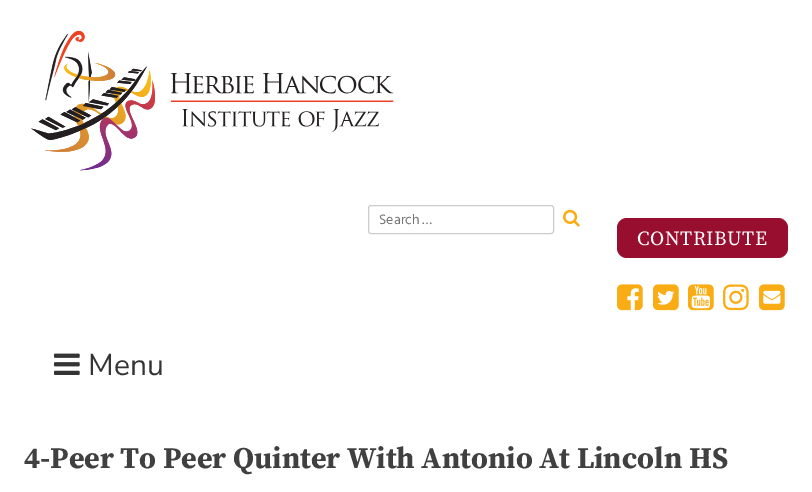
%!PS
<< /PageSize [812 492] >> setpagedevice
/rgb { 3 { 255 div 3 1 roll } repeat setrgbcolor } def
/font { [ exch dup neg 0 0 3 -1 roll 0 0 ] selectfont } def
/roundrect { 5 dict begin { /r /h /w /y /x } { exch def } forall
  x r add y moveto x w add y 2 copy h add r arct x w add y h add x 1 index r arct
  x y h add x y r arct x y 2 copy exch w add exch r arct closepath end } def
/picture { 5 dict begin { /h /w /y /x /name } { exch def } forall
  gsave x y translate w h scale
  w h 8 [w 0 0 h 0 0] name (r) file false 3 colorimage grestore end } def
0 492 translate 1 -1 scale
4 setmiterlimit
255 255 255 rgb
0 0 812 492 rectfill
(img/1.rgb) 31 30 363 141 picture
204 204 204 rgb
368.5 205.5 185 28 2.5 roundrect stroke
(img/2.rgb) 563 209 17 18 picture
151 14 46 rgb
617 218 171 40 10 roundrect fill
(img/3.rgb) 617 284 26 27 picture
(img/4.rgb) 653 284 26 27 picture
(img/5.rgb) 688 284 26 27 picture
(img/6.rgb) 723 284 26 27 picture
(img/7.rgb) 759 284 26 27 picture
(img/8.rgb) 54 353 26 22 picture
/HindSiliguri-Regular 14 font
117 117 117 rgb
379 224 moveto (Search …) show
/SourceSerifPro-Regular 20 font
255 255 255 rgb
637 245 moveto 0.5 0 (CONTRIBUTE) ashow
/NunitoSans-Regular 30 font
52 52 52 rgb
88 375 moveto (Menu) show
/SourceSerifPro-Bold 30 font
64 64 64 rgb
24 468 moveto (4-Peer To Peer Quinter With Antonio At Lincoln HS) show
showpage
